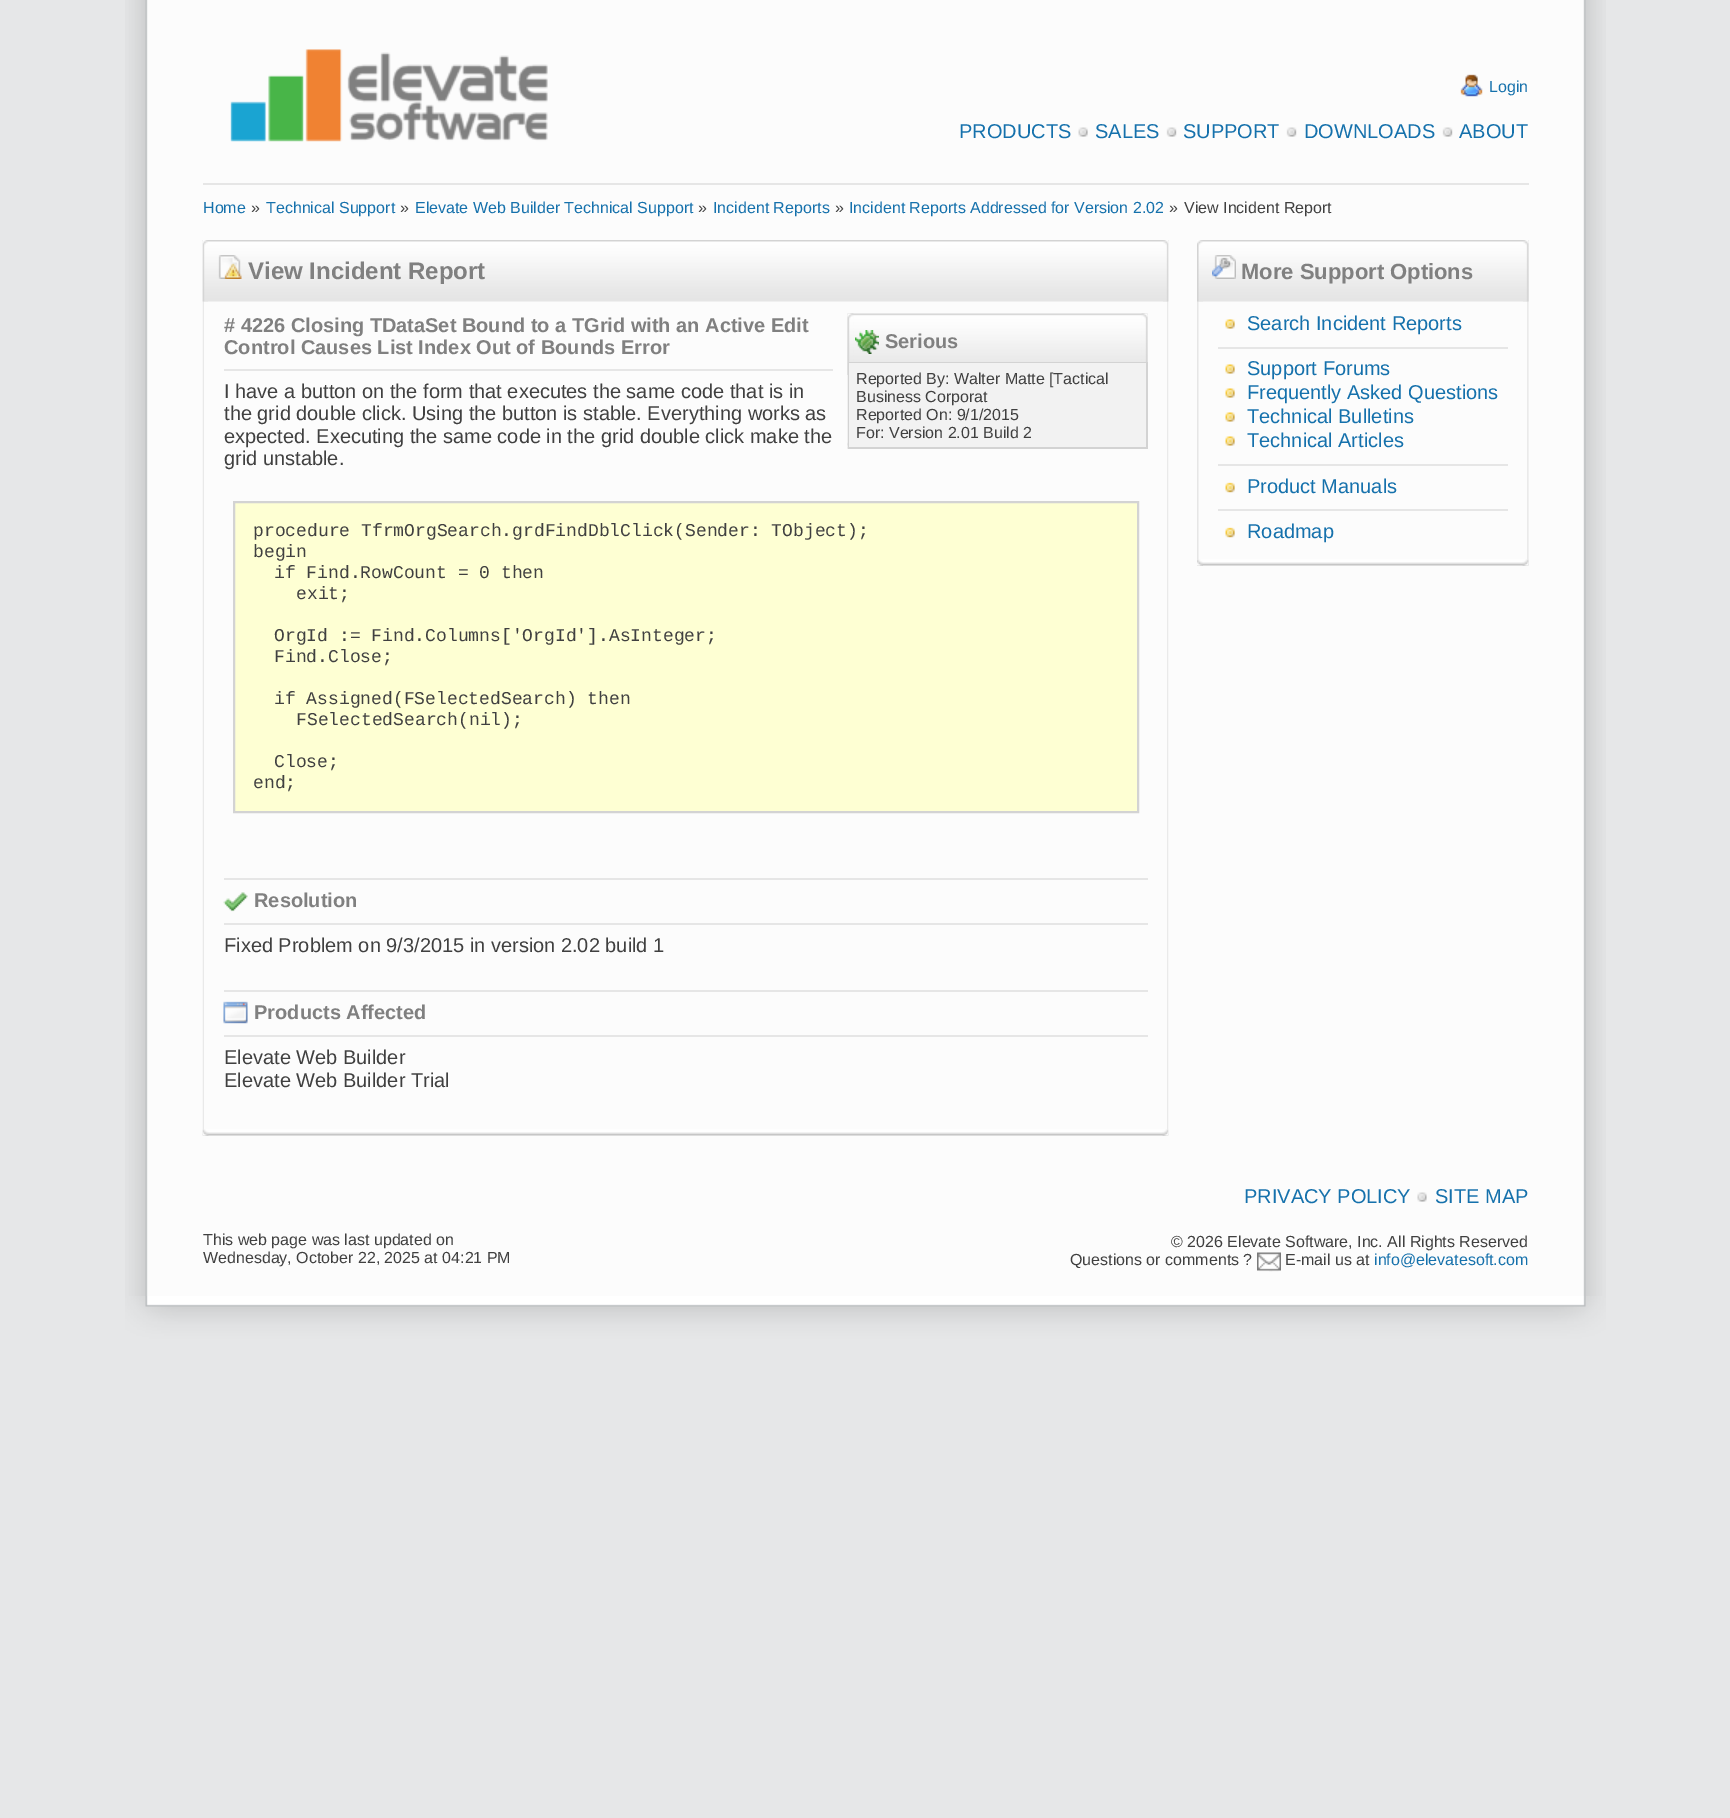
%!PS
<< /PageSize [1730 1818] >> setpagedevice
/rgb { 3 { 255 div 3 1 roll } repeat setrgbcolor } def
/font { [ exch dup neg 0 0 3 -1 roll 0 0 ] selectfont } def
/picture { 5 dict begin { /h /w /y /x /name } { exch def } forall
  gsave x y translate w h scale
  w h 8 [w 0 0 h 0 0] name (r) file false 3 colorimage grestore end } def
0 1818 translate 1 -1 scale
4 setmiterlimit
230 231 232 rgb
0 0 1730 1818 rectfill
(img/1.rgb) 125 0 1481 1296 picture
(img/2.rgb) 230 49 318 93 picture
(img/3.rgb) 1460 74 23 23 picture
(img/4.rgb) 1078 127 10 10 picture
(img/5.rgb) 1166 127 11 10 picture
(img/6.rgb) 1286 127 11 10 picture
(img/5.rgb) 1442 127 11 10 picture
230 230 230 rgb
203 183 1326 2 rectfill
(img/7.rgb) 202 240 2 896 picture
(img/8.rgb) 1167 240 2 896 picture
(img/9.rgb) 202 1129 967 7 picture
(img/10.rgb) 202 1129 7 7 picture
(img/11.rgb) 1162 1129 7 7 picture
(img/12.rgb) 202 240 967 62 picture
(img/13.rgb) 202 240 6 62 picture
(img/14.rgb) 1163 240 6 62 picture
(img/15.rgb) 218 255 24 24 picture
(img/16.rgb) 847 313 2 136 picture
(img/17.rgb) 1146 313 2 49 picture
(img/18.rgb) 847 442 1 7 picture
(img/19.rgb) 847 442 1 7 picture
(img/20.rgb) 847 313 301 62 picture
(img/21.rgb) 847 313 7 62 picture
(img/22.rgb) 1141 313 7 49 picture
(img/23.rgb) 855 330 24 24 picture
[
  [848 362 300 87 211 211 211]
  [849 363 297 84 242 242 242]
  [224 369 609 2 230 230 230]
] { aload pop rgb rectfill } forall
254 255 211 rgb
234 502 moveto 1138 502 lineto 1138 812 lineto 234 812 lineto closepath gsave fill grestore
211 211 211 rgb
2 setlinewidth
stroke
230 230 230 rgb
224 878 924 2 rectfill
(img/24.rgb) 223 892 25 20 picture
224 923 924 2 rectfill
224 990 924 2 rectfill
(img/25.rgb) 223 1001 25 23 picture
224 1035 924 2 rectfill
(img/26.rgb) 1197 301 2 265 picture
(img/27.rgb) 1527 240 2 326 picture
(img/28.rgb) 1197 559 332 7 picture
(img/29.rgb) 1197 559 6 7 picture
(img/30.rgb) 1522 559 7 7 picture
(img/31.rgb) 1197 240 332 62 picture
(img/32.rgb) 1197 240 6 62 picture
(img/33.rgb) 1523 240 6 62 picture
(img/34.rgb) 1212 255 24 24 picture
(img/35.rgb) 1225 319 10 10 picture
1218 347 290 2 rectfill
(img/35.rgb) 1225 364 10 10 picture
(img/35.rgb) 1225 388 10 10 picture
(img/35.rgb) 1225 412 10 10 picture
(img/35.rgb) 1225 436 10 10 picture
1218 464 290 2 rectfill
(img/36.rgb) 1225 482 10 11 picture
1218 509 290 2 rectfill
(img/36.rgb) 1225 527 10 11 picture
(img/37.rgb) 1417 1192 10 10 picture
(img/38.rgb) 1257 1252 24 20 picture
(img/39.rgb) 125 1296 1481 78 picture
/LiberationSans-Regular 16 font
21 113 172 rgb
1489 92 moveto (Login) show
/LiberationSans-Regular 20 font
[
  [(PRODUCTS) 959 138]
  [(SALES) 1095 138]
  [(SUPPORT) 1183 138]
  [(DOWNLOADS) 1304 138]
  [(ABOUT) 1459 138]
] { aload pop moveto show } forall
/LiberationSans-Regular 16 font
203 213 moveto (Home) show
64 64 64 rgb
251 213 moveto (») show
21 113 172 rgb
266 213 moveto (Technical Support) show
64 64 64 rgb
400 213 moveto (») show
21 113 172 rgb
415 213 moveto (Elevate Web Builder Technical Support) show
64 64 64 rgb
698 213 moveto (») show
21 113 172 rgb
713 213 moveto (Incident Reports) show
64 64 64 rgb
835 213 moveto (») show
21 113 172 rgb
849 213 moveto (Incident Reports Addressed for Version 2.02) show
64 64 64 rgb
1169 213 moveto (») show
1184 213 moveto (View Incident Report) show
/LiberationSans-Bold 24 font
128 128 128 rgb
248 279 moveto (View Incident Report) show
/LiberationSans-Bold 20 font
[
  [(# 4226 Closing TDataSet Bound to a TGrid with an Active Edit) 224 332]
  [(Control Causes List Index Out of Bounds Error) 224 354]
  [(Serious) 885 348]
] { aload pop moveto show } forall
/LiberationSans-Regular 16 font
64 64 64 rgb
[
  [(Reported By: Walter Matte [Tactical) 856 384]
  [(Business Corporat) 856 402]
  [(Reported On: 9/1/2015) 856 420]
  [(For: Version 2.01 Build 2) 856 438]
] { aload pop moveto show } forall
/LiberationSans-Regular 20 font
[
  [(I have a button on the form that executes the same code that is in) 224 398]
  [(the grid double click. Using the button is stable. Everything works as) 224 420]
  [(expected. Executing the same code in the grid double click make the) 224 443]
  [(grid unstable.) 224 465]
] { aload pop moveto show } forall
/LiberationMono-Regular 18 font
[
  [(procedure TfrmOrgSearch.grdFindDblClick\(Sender: TObject\);) 253 536]
  [(begin) 253 557]
  [(if Find.RowCount = 0 then) 274 578]
  [(exit;) 296 599]
  [(OrgId := Find.Columns['OrgId'].AsInteger;) 274 641]
  [(Find.Close;) 274 662]
  [(if Assigned\(FSelectedSearch\) then) 274 704]
  [(FSelectedSearch\(nil\);) 296 725]
  [(Close;) 274 767]
  [(end;) 253 788]
] { aload pop moveto show } forall
/LiberationSans-Bold 20 font
128 128 128 rgb
254 907 moveto (Resolution) show
/LiberationSans-Regular 20 font
64 64 64 rgb
224 952 moveto (Fixed Problem on 9/3/2015 in version 2.02 build 1) show
/LiberationSans-Bold 20 font
128 128 128 rgb
254 1019 moveto (Products Affected) show
/LiberationSans-Regular 20 font
64 64 64 rgb
224 1064 moveto (Elevate Web Builder) show
224 1087 moveto (Elevate Web Builder Trial) show
/LiberationSans-Bold 22 font
128 128 128 rgb
1241 279 moveto (More Support Options) show
/LiberationSans-Regular 20 font
21 113 172 rgb
[
  [(Search Incident Reports) 1247 330]
  [(Support Forums) 1247 375]
  [(Frequently Asked Questions) 1247 399]
  [(Technical Bulletins) 1247 423]
  [(Technical Articles) 1247 447]
  [(Product Manuals) 1247 493]
  [(Roadmap) 1247 538]
] { aload pop moveto show } forall
/LiberationSans-Regular 16 font
64 64 64 rgb
203 1245 moveto (This web page was last updated on) show
203 1263 moveto (Wednesday, October 22, 2025 at 04:21 PM) show
/LiberationSans-Regular 20 font
21 113 172 rgb
1244 1203 moveto (PRIVACY POLICY) show
1435 1203 moveto (SITE MAP) show
/LiberationSans-Regular 16 font
64 64 64 rgb
[
  [(© 2026 Elevate Software, Inc. All Rights Reserved) 1171 1247]
  [(Questions or comments ?) 1070 1265]
  [(E-mail us at) 1285 1265]
] { aload pop moveto show } forall
21 113 172 rgb
1374 1265 moveto (info@elevatesoft.com) show
showpage
